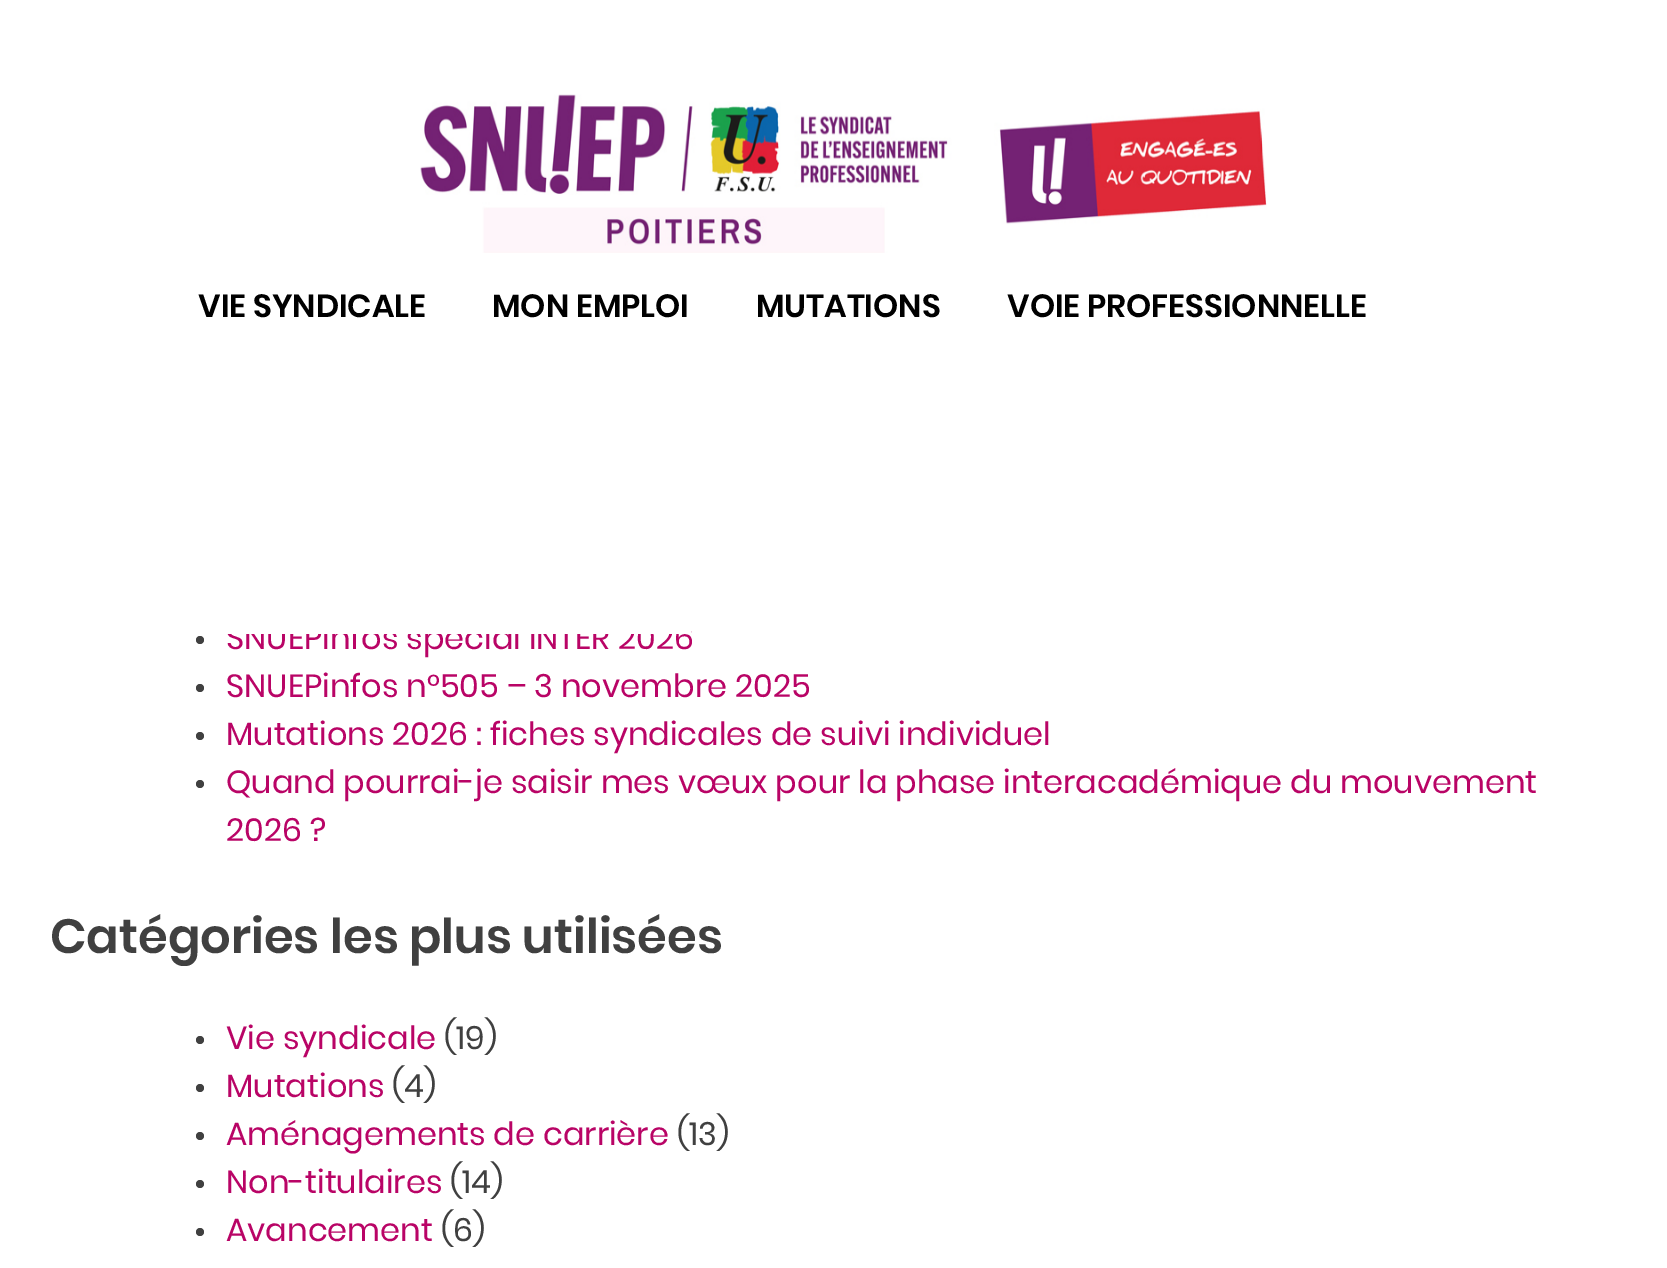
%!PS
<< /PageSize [1667 1268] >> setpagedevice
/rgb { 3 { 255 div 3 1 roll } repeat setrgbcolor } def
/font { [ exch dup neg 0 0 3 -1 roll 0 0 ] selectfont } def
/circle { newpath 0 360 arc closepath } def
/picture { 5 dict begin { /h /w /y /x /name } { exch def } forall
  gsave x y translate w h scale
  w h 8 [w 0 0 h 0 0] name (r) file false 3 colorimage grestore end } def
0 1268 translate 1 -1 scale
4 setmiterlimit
255 255 255 rgb
0 0 1667 1268 rectfill
(img/1.rgb) 420 94 847 159 picture
64 64 64 rgb
200 640 4 circle fill
200 688 4 circle fill
200 736 4 circle fill
200 784 4 circle fill
200 1040 4 circle fill
200 1088 4 circle fill
200 1136 4 circle fill
200 1184 4 circle fill
200 1232 4 circle fill
/Poppins-SemiBold 32 font
0 0 0 rgb
[
  [(VIE SYNDICALE) 198 317]
  [(MON EMPLOI) 492 317]
  [(MUTATIONS) 756 317]
  [(VOIE PROFESSIONNELLE) 1007 317]
] { aload pop moveto show } forall
/Poppins-Regular 32 font
185 4 102 rgb
226 649 moveto (SNUEPinfos spécial INTER 2026) show
255 255 255 rgb
227 624 464 10 rectfill
185 4 102 rgb
[
  [(SNUEPinfos n°505 – 3 novembre 2025) 226 697]
  [(Mutations 2026 : fiches syndicales de suivi individuel) 226 745]
  [(Quand pourrai-je saisir mes vœux pour la phase interacadémique du mouvement) 226 793]
  [(2026 ?) 226 841]
] { aload pop moveto show } forall
/Poppins-SemiBold 48 font
64 64 64 rgb
50 953 moveto (Catégories les plus utilisées) show
/Poppins-Regular 32 font
185 4 102 rgb
226 1049 moveto (Vie syndicale) show
64 64 64 rgb
444 1049 moveto (\(19\)) show
185 4 102 rgb
226 1097 moveto (Mutations) show
64 64 64 rgb
392 1097 moveto (\(4\)) show
185 4 102 rgb
226 1145 moveto (Aménagements de carrière) show
64 64 64 rgb
677 1145 moveto (\(13\)) show
185 4 102 rgb
226 1193 moveto (Non-titulaires) show
64 64 64 rgb
450 1193 moveto (\(14\)) show
185 4 102 rgb
226 1241 moveto (Avancement) show
64 64 64 rgb
441 1241 moveto (\(6\)) show
showpage
